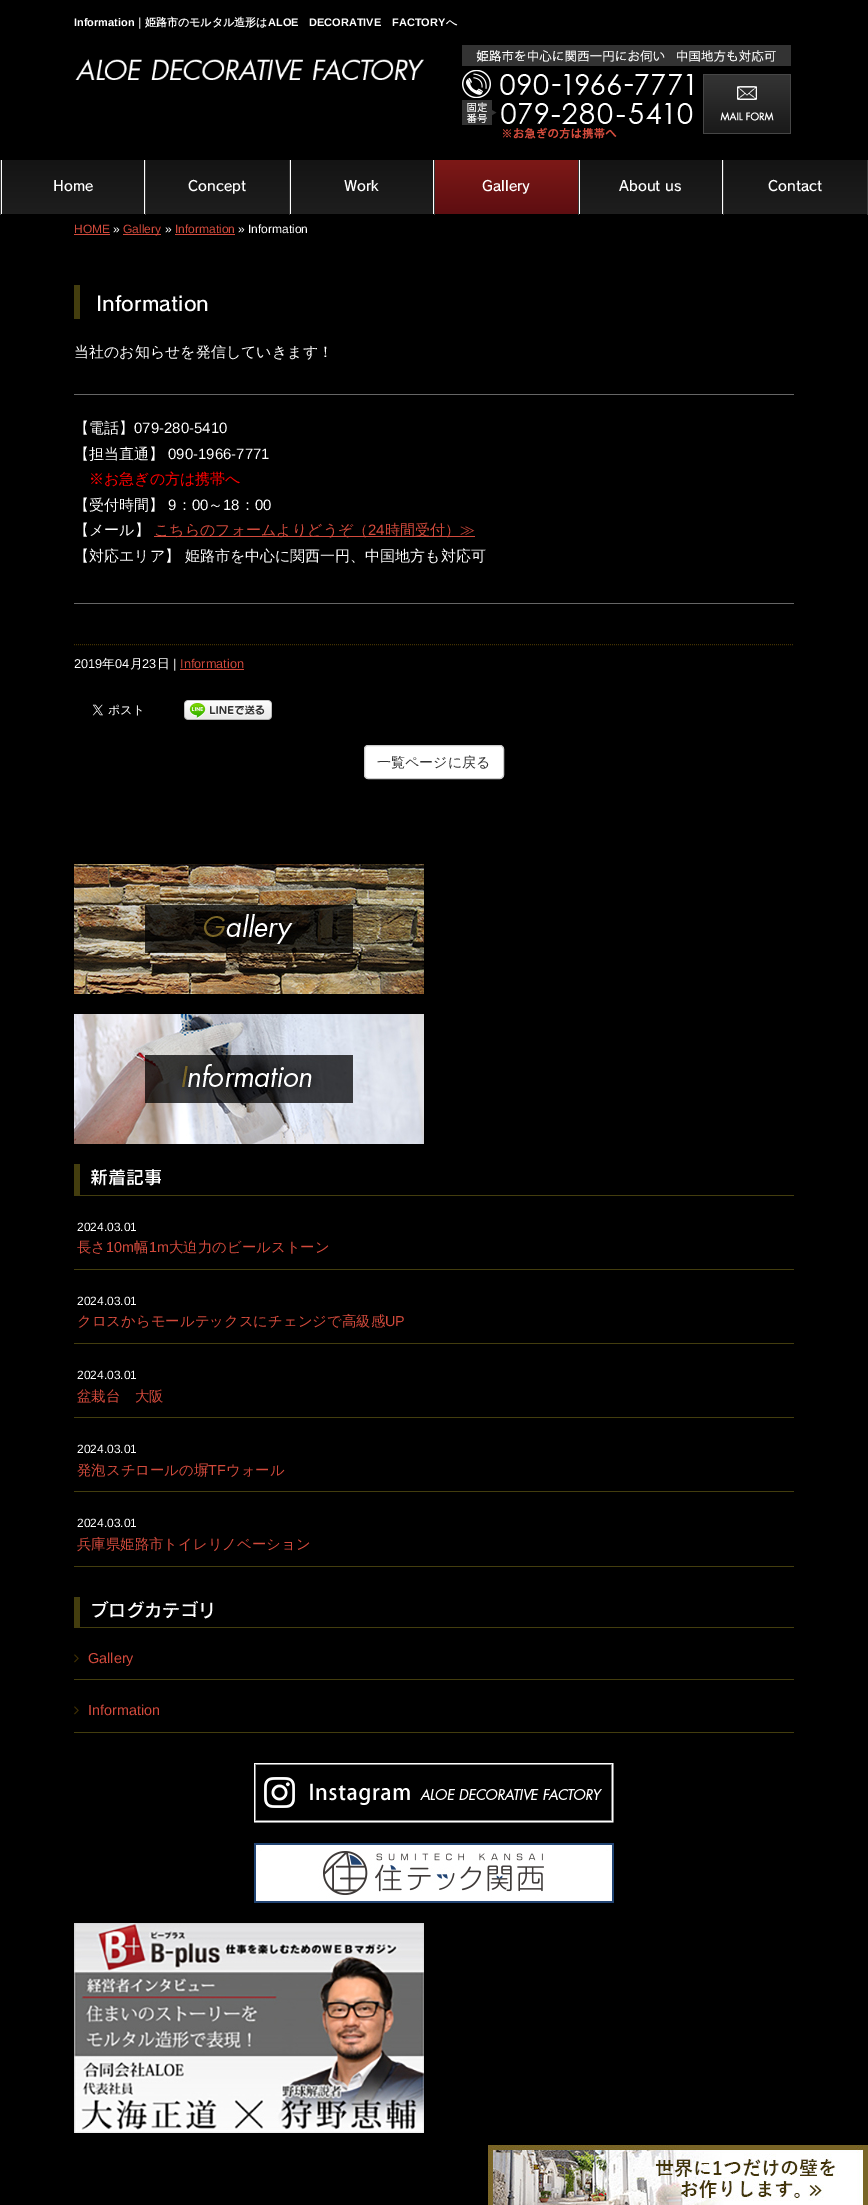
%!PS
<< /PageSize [868 2205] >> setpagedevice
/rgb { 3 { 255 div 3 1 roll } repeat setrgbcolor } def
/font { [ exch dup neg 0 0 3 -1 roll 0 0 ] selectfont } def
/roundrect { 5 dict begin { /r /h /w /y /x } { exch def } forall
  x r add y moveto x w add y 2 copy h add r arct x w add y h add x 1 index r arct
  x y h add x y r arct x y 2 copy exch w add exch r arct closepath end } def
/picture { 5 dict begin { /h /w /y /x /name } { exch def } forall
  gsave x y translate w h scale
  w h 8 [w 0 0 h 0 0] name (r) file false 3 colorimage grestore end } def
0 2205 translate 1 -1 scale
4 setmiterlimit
0 0 0 rgb
0 0 868 2205 rectfill
(img/1.rgb) 75 59 349 21 picture
(img/2.rgb) 462 45 329 94 picture
255 255 255 rgb
1 160 722 54 rectfill
gsave 2 160 moveto 144 160 lineto 144 214 lineto 2 214 lineto closepath clip newpath
<< /ShadingType 2 /ColorSpace /DeviceRGB /Coords [73 160 73 214] /Extend [true true] /Function << /FunctionType 2 /Domain [0 1] /C0 [0.078 0.078 0.078] /C1 [0.118 0.118 0.118] /N 1 >> >> shfill grestore
56 56 56 rgb
0 160 1 55 rectfill
145 160 1 55 rectfill
gsave 146 160 moveto 289 160 lineto 289 214 lineto 146 214 lineto closepath clip newpath
<< /ShadingType 2 /ColorSpace /DeviceRGB /Coords [218 160 218 214] /Extend [true true] /Function << /FunctionType 2 /Domain [0 1] /C0 [0.078 0.078 0.078] /C1 [0.118 0.118 0.118] /N 1 >> >> shfill grestore
289 160 1 55 rectfill
gsave 291 160 moveto 433 160 lineto 433 214 lineto 291 214 lineto closepath clip newpath
<< /ShadingType 2 /ColorSpace /DeviceRGB /Coords [362 160 362 214] /Extend [true true] /Function << /FunctionType 2 /Domain [0 1] /C0 [0.078 0.078 0.078] /C1 [0.118 0.118 0.118] /N 1 >> >> shfill grestore
434 160 1 55 rectfill
gsave 435 160 moveto 578 160 lineto 578 214 lineto 435 214 lineto closepath clip newpath
<< /ShadingType 2 /ColorSpace /DeviceRGB /Coords [507 160 507 214] /Extend [true true] /Function << /FunctionType 2 /Domain [0 1] /C0 [0.49 0.098 0.09] /C1 [0.369 0.055 0.067] /N 1 >> >> shfill grestore
gsave 580 160 moveto 722 160 lineto 722 214 lineto 580 214 lineto closepath clip newpath
<< /ShadingType 2 /ColorSpace /DeviceRGB /Coords [651 160 651 214] /Extend [true true] /Function << /FunctionType 2 /Domain [0 1] /C0 [0.078 0.078 0.078] /C1 [0.118 0.118 0.118] /N 1 >> >> shfill grestore
578 160 1 55 rectfill
gsave 724 160 moveto 867 160 lineto 867 214 lineto 724 214 lineto closepath clip newpath
<< /ShadingType 2 /ColorSpace /DeviceRGB /Coords [796 160 796 214] /Extend [true true] /Function << /FunctionType 2 /Domain [0 1] /C0 [0.078 0.078 0.078] /C1 [0.118 0.118 0.118] /N 1 >> >> shfill grestore
[
  [867 160 1 55 56 56 56]
  [723 160 1 55 56 56 56]
  [74 234 36 1 210 74 60]
  [123 234 38 1 210 74 60]
  [175 234 60 1 210 74 60]
  [74 285 6 34 67 61 14]
  [74 394 720 1 102 102 102]
  [74 603 720 1 102 102 102]
  [154 536 321 1 210 74 60]
] { aload pop rgb rectfill } forall
66 49 3 rgb
[1 1] 0 setdash
74 644.5 moveto 794 644.5 lineto stroke
210 74 60 rgb
180 669 64 1 rectfill
(img/3.rgb) 92 704 50 12 picture
(img/4.rgb) 184 700 88 20 picture
255 255 255 rgb
364.5 745.5 139 33 3.5 roundrect gsave fill grestore
204 204 204 rgb
[] 0 setdash
stroke
(img/5.rgb) 74 864 350 130 picture
(img/6.rgb) 74 1014 350 130 picture
[
  [74 1195 720 1 67 61 14]
  [74 1164 6 32 67 61 14]
  [74 1269 720 1 67 61 14]
  [74 1343 720 1 67 61 14]
  [74 1417 720 1 67 61 14]
  [74 1491 720 1 67 61 14]
  [74 1566 720 1 67 61 14]
  [74 1627 720 1 67 61 14]
  [74 1597 6 31 67 61 14]
  [74 1679 720 1 67 61 14]
] { aload pop rgb rectfill } forall
(img/7.rgb) 74 1654 5 9 picture
74 1732 720 1 rectfill
(img/7.rgb) 74 1706 5 9 picture
(img/8.rgb) 254 1763 360 60 picture
(img/9.rgb) 254 1843 360 60 picture
(img/10.rgb) 74 1923 350 210 picture
(img/11.rgb) 488 2145 380 60 picture
/LiberationSans-Bold 11 font
255 255 255 rgb
74 26 moveto (Information) show
/WenQuanYiZenHei-Bold 11 font
134 26 moveto (｜姫路市のモルタル造形は) show
/LiberationSans-Bold 11 font
[
  [(ALOE) 268 26]
  [(DECORATIVE) 309 26]
  [(FACTORY) 392 26]
] { aload pop moveto show } forall
/WenQuanYiZenHei-Bold 11 font
446 26 moveto (へ) show
/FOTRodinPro-SemiBold 14 font
[
  [(Home) 53 191]
  [(Concept) 188 191]
  [(Work) 344 191]
  [(Gallery) 482 191]
  [(About us) 619 191]
  [(Contact) 768 191]
] { aload pop moveto show } forall
/LiberationSans-Regular 12 font
210 74 60 rgb
74 233 moveto (HOME) show
255 255 255 rgb
113 233 moveto (») show
210 74 60 rgb
123 233 moveto (Gallery) show
255 255 255 rgb
165 233 moveto (») show
210 74 60 rgb
175 233 moveto (Information) show
255 255 255 rgb
238 233 moveto (» Information) show
/FOTRodinPro-SemiBold 20 font
96 311 moveto (Information) show
/WenQuanYiZenHei-Medium 15 font
74 357 moveto (当社のお知らせを発信していきます！) show
74 433 moveto (【電話】) show
/LiberationSans-Regular 15 font
134 433 moveto (079-280-5410) show
/WenQuanYiZenHei-Medium 15 font
74 459 moveto (【担当直通】) show
/LiberationSans-Regular 15 font
168 459 moveto (090-1966-7771) show
/WenQuanYiZenHei-Medium 15 font
255 0 0 rgb
89 484 moveto (※お急ぎの方は携帯へ) show
255 255 255 rgb
74 510 moveto (【受付時間】) show
/LiberationSans-Regular 15 font
168 510 moveto (9) show
/WenQuanYiZenHei-Medium 15 font
177 510 moveto (：) show
/LiberationSans-Regular 15 font
192 510 moveto (00) show
/WenQuanYiZenHei-Medium 15 font
208 510 moveto (～) show
/LiberationSans-Regular 15 font
223 510 moveto (18) show
/WenQuanYiZenHei-Medium 15 font
240 510 moveto (：) show
/LiberationSans-Regular 15 font
255 510 moveto (00) show
/WenQuanYiZenHei-Medium 15 font
74 535 moveto (【メール】) show
210 74 60 rgb
154 535 moveto (こちらのフォームよりどうぞ（) show
/LiberationSans-Regular 15 font
368 535 moveto (24) show
/WenQuanYiZenHei-Medium 15 font
385 535 moveto (時間受付）≫) show
255 255 255 rgb
74 561 moveto (【対応エリア】 姫路市を中心に関西一円、中国地方も対応可) show
/LiberationSans-Regular 12.75 font
74 668 moveto (2019) show
/WenQuanYiZenHei-Medium 12.75 font
102 668 moveto (年) show
/LiberationSans-Regular 12.75 font
115 668 moveto (04) show
/WenQuanYiZenHei-Medium 12.75 font
130 668 moveto (月) show
/LiberationSans-Regular 12.75 font
142 668 moveto (23) show
/WenQuanYiZenHei-Medium 12.75 font
157 668 moveto (日) show
/LiberationSans-Regular 12.75 font
173 668 moveto (|) show
210 74 60 rgb
180 668 moveto (Information) show
/WenQuanYiZenHei-Medium 14 font
51 51 51 rgb
377 767 moveto (一覧ページに戻る) show
/FOTRodinPro-SemiBold 18 font
255 255 255 rgb
90 1184 moveto (新着記事) show
/LiberationSans-Regular 12 font
77 1231 moveto (2024.03.01) show
/WenQuanYiZenHei-Medium 14.4 font
210 74 60 rgb
77 1252 moveto (長さ) show
/LiberationSans-Regular 14.4 font
106 1252 moveto (10m) show
/WenQuanYiZenHei-Medium 14.4 font
134 1252 moveto (幅) show
/LiberationSans-Regular 14.4 font
149 1252 moveto (1m) show
/WenQuanYiZenHei-Medium 14.4 font
169 1252 moveto (大迫力のビールストーン) show
/LiberationSans-Regular 12 font
255 255 255 rgb
77 1305 moveto (2024.03.01) show
/WenQuanYiZenHei-Medium 14.4 font
210 74 60 rgb
77 1326 moveto (クロスからモールテックスにチェンジで高級感) show
/LiberationSans-Regular 14.4 font
385 1326 moveto (UP) show
/LiberationSans-Regular 12 font
255 255 255 rgb
77 1379 moveto (2024.03.01) show
/WenQuanYiZenHei-Medium 14.4 font
210 74 60 rgb
77 1401 moveto (盆栽台　大阪) show
/LiberationSans-Regular 12 font
255 255 255 rgb
77 1453 moveto (2024.03.01) show
/WenQuanYiZenHei-Medium 14.4 font
210 74 60 rgb
77 1475 moveto (発泡スチロールの塀) show
/LiberationSans-Regular 14.4 font
208 1475 moveto (TF) show
/WenQuanYiZenHei-Medium 14.4 font
226 1475 moveto (ウォール) show
/LiberationSans-Regular 12 font
255 255 255 rgb
77 1527 moveto (2024.03.01) show
/WenQuanYiZenHei-Medium 14.4 font
210 74 60 rgb
77 1549 moveto (兵庫県姫路市トイレリノベーション) show
/FOTRodinPro-SemiBold 18 font
255 255 255 rgb
90 1617 moveto (ブログカテゴリ) show
/LiberationSans-Regular 14.4 font
210 74 60 rgb
88 1663 moveto (Gallery) show
88 1715 moveto (Information) show
showpage
